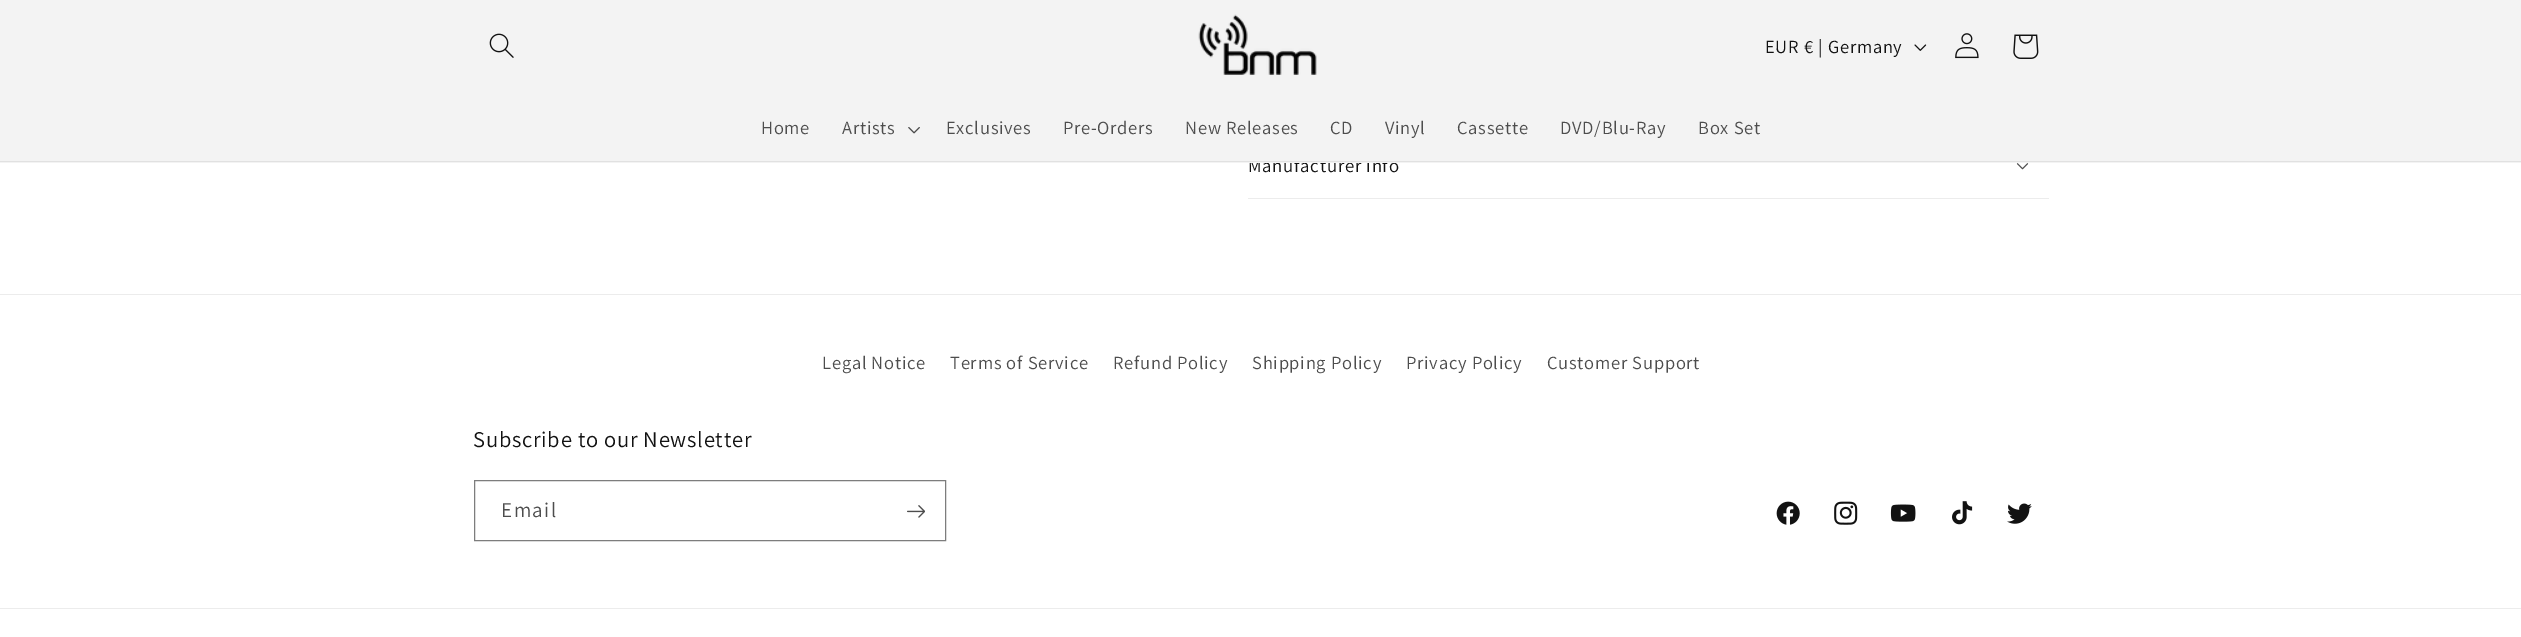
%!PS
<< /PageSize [2521 637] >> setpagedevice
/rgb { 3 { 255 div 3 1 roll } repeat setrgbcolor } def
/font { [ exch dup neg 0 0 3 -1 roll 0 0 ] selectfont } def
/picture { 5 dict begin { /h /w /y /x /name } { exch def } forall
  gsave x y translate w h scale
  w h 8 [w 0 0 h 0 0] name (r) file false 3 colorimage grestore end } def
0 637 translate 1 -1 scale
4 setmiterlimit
255 255 255 rgb
0 0 2521 637 rectfill
236 236 236 rgb
1248 198 801 1 rectfill
(img/7.rgb) 2016 163 13 7 picture
0 294 2521 1 rectfill
125 125 125 rgb
474.5 480.5 471 60 rectstroke
(img/8.rgb) 907 505 18 13 picture
(img/9.rgb) 1776 501 24 24 picture
(img/10.rgb) 1834 501 24 24 picture
(img/11.rgb) 1890 504 26 18 picture
(img/12.rgb) 1952 501 21 24 picture
(img/13.rgb) 2007 503 25 21 picture
236 236 236 rgb
0 608 2521 1 rectfill
/Assistant-Regular 18.75 font
18 18 18 rgb
1248 172 moveto 0.75 0 (Manufacturer info) ashow
243 243 243 rgb
0 0 2521 163 rectfill
(img/5.rgb) 2013 34 26 25 picture
(img/3.rgb) 1914 44 13 7 picture
/Assistant-Regular 18.5 font
18 18 18 rgb
1765 53 moveto 0.75 0 (EUR € | Germany) ashow
(img/6.rgb) 908 127 12 7 picture
77 77 77 rgb
842 134 moveto 0.75 0 (Artists) ashow
(img/1.rgb) 489 33 25 25 picture
(img/4.rgb) 1955 33 24 26 picture
1698 134 moveto 0.75 0 (Box Set) ashow
1560 134 moveto 0.75 0 (DVD/Blu-Ray) ashow
1457 134 moveto 0.75 0 (Cassette) ashow
1385 134 moveto 0.75 0 (Vinyl) ashow
1330 134 moveto 0.75 0 (CD) ashow
1185 134 moveto 0.75 0 (New Releases) ashow
1063 134 moveto 0.75 0 (Pre-Orders) ashow
946 134 moveto 0.75 0 (Exclusives) ashow
761 134 moveto 0.75 0 (Home) ashow
(img/2.rgb) 1198 14 119 61 picture
225 225 225 rgb
0 161 2521 1 rectfill
77 77 77 rgb
822 369 moveto 0.75 0 (Legal Notice) ashow
950 369 moveto 0.75 0 (Terms of Service) ashow
1113 369 moveto 0.75 0 (Refund Policy) ashow
1252 369 moveto 0.75 0 (Shipping Policy) ashow
1406 369 moveto 0.75 0 (Privacy Policy) ashow
1547 369 moveto 0.75 0 (Customer Support) ashow
/Assistant-Regular 22.5 font
18 18 18 rgb
473 447 moveto 0.75 0 (Subscribe to our Newsletter) ashow
/Assistant-Regular 21 font
77 77 77 rgb
501 517 moveto 1.5 0 (Email) ashow
showpage
